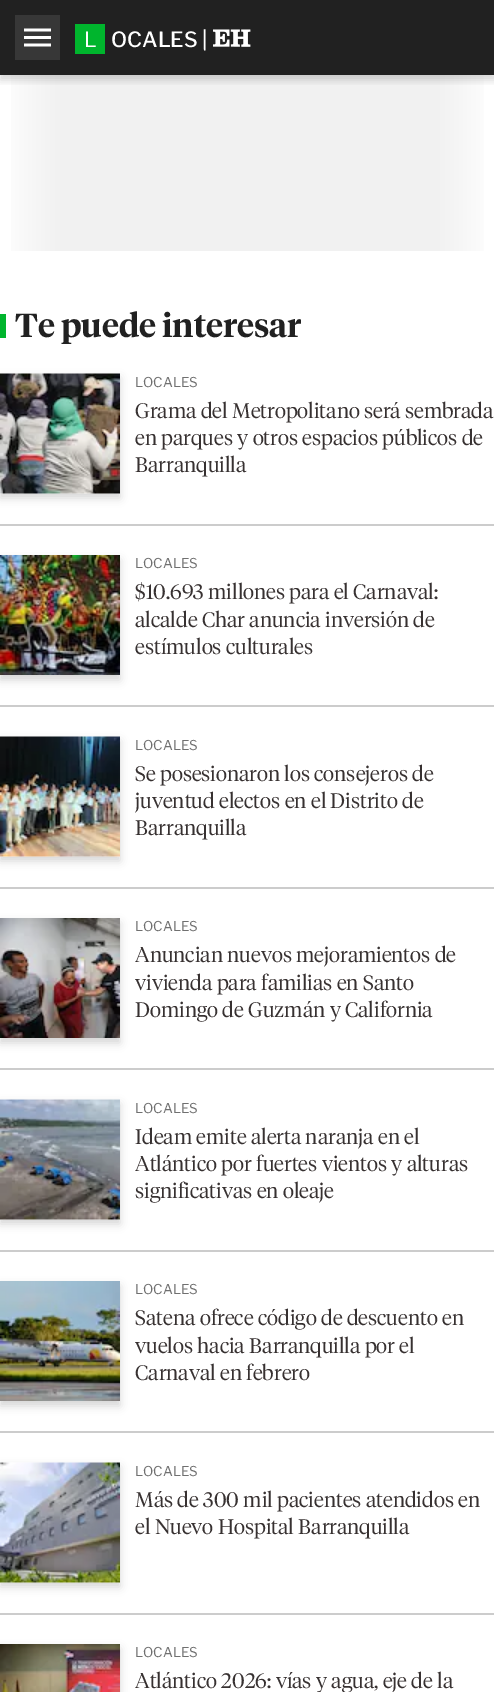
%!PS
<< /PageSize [494 1692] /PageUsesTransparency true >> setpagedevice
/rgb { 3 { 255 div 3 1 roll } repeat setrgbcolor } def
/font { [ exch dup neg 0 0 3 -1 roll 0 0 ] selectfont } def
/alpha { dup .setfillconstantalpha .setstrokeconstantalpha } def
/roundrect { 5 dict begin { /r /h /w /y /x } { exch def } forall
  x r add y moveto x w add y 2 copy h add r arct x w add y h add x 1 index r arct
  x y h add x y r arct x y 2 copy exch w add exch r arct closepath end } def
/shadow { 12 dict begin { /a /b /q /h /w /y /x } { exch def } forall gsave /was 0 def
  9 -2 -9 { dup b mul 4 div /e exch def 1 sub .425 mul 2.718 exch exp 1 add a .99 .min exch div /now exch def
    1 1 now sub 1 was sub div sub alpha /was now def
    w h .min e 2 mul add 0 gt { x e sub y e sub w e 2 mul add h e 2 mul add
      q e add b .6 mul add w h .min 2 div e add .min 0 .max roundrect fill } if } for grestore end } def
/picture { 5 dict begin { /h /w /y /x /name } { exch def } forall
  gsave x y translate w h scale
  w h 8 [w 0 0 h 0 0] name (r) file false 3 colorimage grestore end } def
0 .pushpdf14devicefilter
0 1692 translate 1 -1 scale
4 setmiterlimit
255 255 255 rgb
0 0 494 1692 rectfill
33 33 33 rgb
0 0 494 75 rectfill
gsave 11 75 moveto 484 75 lineto 484 251 lineto 11 251 lineto closepath clip newpath
<< /ShadingType 2 /ColorSpace /DeviceRGB /Coords [0 33 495 33] /Extend [true true] /Function << /FunctionType 3 /Domain [0 1] /Functions [<< /FunctionType 2 /Domain [0 1] /C0 [1 1 1] /C1 [0.945 0.945 0.945] /N 1 >> << /FunctionType 2 /Domain [0 1] /C0 [0.945 0.945 0.945] /C1 [0.945 0.945 0.945] /N 1 >> << /FunctionType 2 /Domain [0 1] /C0 [0.945 0.945 0.945] /C1 [1 1 1] /N 1 >>] /Bounds [0.12 0.88] /Encode [0 1 0 1 0 1] >> >> shfill grestore
gsave
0 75 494 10 rectclip
0 0 0 rgb
0 5 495 75 0 4.5 0.16 shadow
grestore
55 55 55 rgb
15 15 45 45 rectfill
(img/1.rgb) 24 28 27 19 picture
0 181 45 rgb
75 24 30 30 rectfill
(img/2.rgb) 213 29 38 18 picture
0 314 6 24 rectfill
204 204 204 rgb
0 524 494 2 rectfill
0 0 0 rgb
0 378 120 120 0 4.5 0.16 shadow
(img/3.rgb) 0 373 120 121 picture
204 204 204 rgb
0 705 494 2 rectfill
0 0 0 rgb
0 560 120 120 0 4.5 0.16 shadow
(img/4.rgb) 0 555 120 120 picture
204 204 204 rgb
0 887 494 2 rectfill
0 0 0 rgb
0 741 120 120 0 4.5 0.16 shadow
(img/5.rgb) 0 736 120 121 picture
204 204 204 rgb
0 1068 494 2 rectfill
0 0 0 rgb
0 923 120 120 0 4.5 0.16 shadow
(img/6.rgb) 0 918 120 120 picture
204 204 204 rgb
0 1250 494 2 rectfill
0 0 0 rgb
0 1104 120 120 0 4.5 0.16 shadow
(img/7.rgb) 0 1099 120 121 picture
204 204 204 rgb
0 1431 494 2 rectfill
0 0 0 rgb
0 1286 120 120 0 4.5 0.16 shadow
(img/8.rgb) 0 1281 120 120 picture
204 204 204 rgb
0 1613 494 2 rectfill
0 0 0 rgb
0 1467 120 120 0 4.5 0.16 shadow
(img/9.rgb) 0 1462 120 121 picture
0 1649 120 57 0 4.5 0.16 shadow
(img/10.rgb) 0 1644 120 48 picture
/LibreFranklin-Regular 21 font
255 255 255 rgb
84 47 moveto (L) show
/LibreFranklin-Medium 21 font
111 47 moveto (OCALES |) show
/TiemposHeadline-SemiBold 33 font
33 33 33 rgb
15 337 moveto (Te puede interesar) show
/LibreFranklin-Regular 13.5 font
112 112 112 rgb
135 387 moveto (LOCALES) show
/TiemposHeadline-Light 21 font
55 49 49 rgb
[
  [(Grama del Metropolitano será sembrada) 135 418]
  [(en parques y otros espacios públicos de) 135 445]
  [(Barranquilla) 135 472]
] { aload pop moveto show } forall
/LibreFranklin-Regular 13.5 font
112 112 112 rgb
135 568 moveto (LOCALES) show
/TiemposHeadline-Light 21 font
55 49 49 rgb
[
  [($10.693 millones para el Carnaval:) 135 599]
  [(alcalde Char anuncia inversión de) 135 627]
  [(estímulos culturales) 135 654]
] { aload pop moveto show } forall
/LibreFranklin-Regular 13.5 font
112 112 112 rgb
135 750 moveto (LOCALES) show
/TiemposHeadline-Light 21 font
55 49 49 rgb
[
  [(Se posesionaron los consejeros de) 135 781]
  [(juventud electos en el Distrito de) 135 808]
  [(Barranquilla) 135 835]
] { aload pop moveto show } forall
/LibreFranklin-Regular 13.5 font
112 112 112 rgb
135 931 moveto (LOCALES) show
/TiemposHeadline-Light 21 font
55 49 49 rgb
[
  [(Anuncian nuevos mejoramientos de) 135 962]
  [(vivienda para familias en Santo) 135 990]
  [(Domingo de Guzmán y California) 135 1017]
] { aload pop moveto show } forall
/LibreFranklin-Regular 13.5 font
112 112 112 rgb
135 1113 moveto (LOCALES) show
/TiemposHeadline-Light 21 font
55 49 49 rgb
[
  [(Ideam emite alerta naranja en el) 135 1144]
  [(Atlántico por fuertes vientos y alturas) 135 1171]
  [(significativas en oleaje) 135 1198]
] { aload pop moveto show } forall
/LibreFranklin-Regular 13.5 font
112 112 112 rgb
135 1294 moveto (LOCALES) show
/TiemposHeadline-Light 21 font
55 49 49 rgb
[
  [(Satena ofrece código de descuento en) 135 1325]
  [(vuelos hacia Barranquilla por el) 135 1353]
  [(Carnaval en febrero) 135 1380]
] { aload pop moveto show } forall
/LibreFranklin-Regular 13.5 font
112 112 112 rgb
135 1476 moveto (LOCALES) show
/TiemposHeadline-Light 21 font
55 49 49 rgb
135 1507 moveto (Más de 300 mil pacientes atendidos en) show
135 1534 moveto (el Nuevo Hospital Barranquilla) show
/LibreFranklin-Regular 13.5 font
112 112 112 rgb
135 1657 moveto (LOCALES) show
/TiemposHeadline-Light 21 font
55 49 49 rgb
135 1688 moveto (Atlántico 2026: vías y agua, eje de la) show
.poppdf14devicefilter showpage
